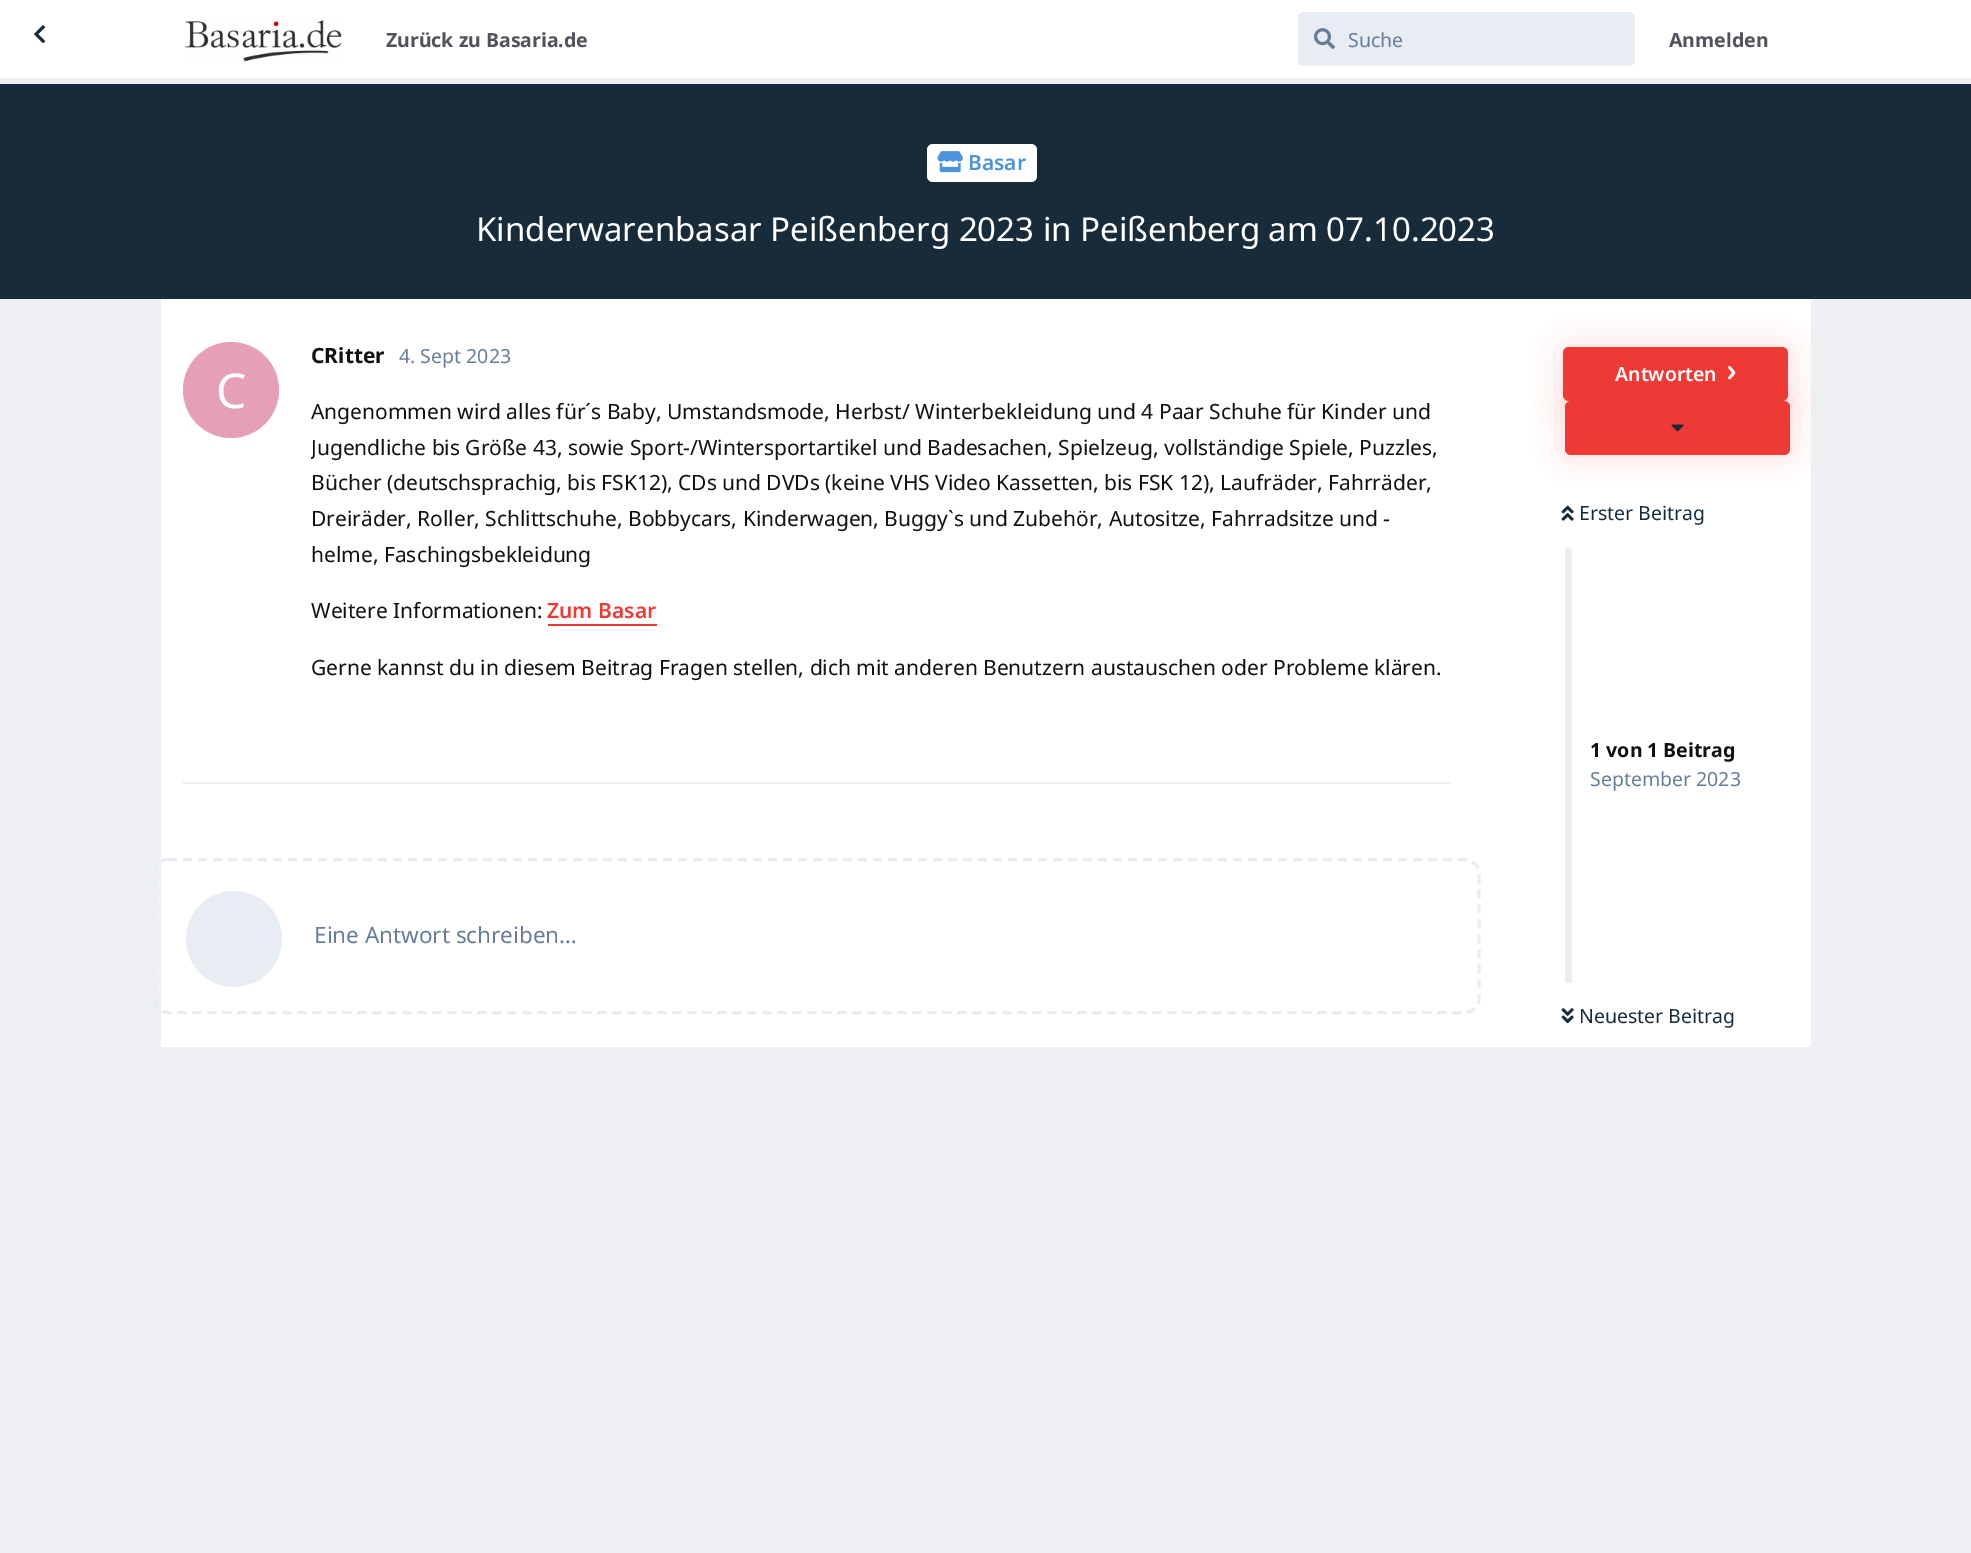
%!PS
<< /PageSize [1971 1553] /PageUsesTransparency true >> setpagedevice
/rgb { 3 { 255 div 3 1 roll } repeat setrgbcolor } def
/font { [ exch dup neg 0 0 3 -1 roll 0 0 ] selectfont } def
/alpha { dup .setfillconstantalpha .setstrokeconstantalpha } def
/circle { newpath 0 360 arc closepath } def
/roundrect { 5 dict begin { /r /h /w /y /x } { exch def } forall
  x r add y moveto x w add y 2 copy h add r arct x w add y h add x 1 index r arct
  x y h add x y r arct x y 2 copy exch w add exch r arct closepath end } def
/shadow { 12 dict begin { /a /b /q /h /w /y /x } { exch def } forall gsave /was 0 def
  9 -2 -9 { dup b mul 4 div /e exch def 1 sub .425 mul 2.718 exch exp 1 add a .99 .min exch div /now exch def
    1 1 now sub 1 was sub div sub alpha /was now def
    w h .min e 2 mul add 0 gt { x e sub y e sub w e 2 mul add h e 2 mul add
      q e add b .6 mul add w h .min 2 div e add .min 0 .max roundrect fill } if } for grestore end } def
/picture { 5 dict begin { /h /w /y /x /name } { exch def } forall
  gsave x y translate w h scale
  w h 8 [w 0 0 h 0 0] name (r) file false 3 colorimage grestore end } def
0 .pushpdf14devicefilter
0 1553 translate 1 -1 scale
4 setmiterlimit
239 240 243 rgb
0 0 1971 1553 rectfill
255 255 255 rgb
0 0 1971 78 rectfill
(img/1.rgb) 34 25 11 18 picture
(img/2.rgb) 185 20 157 42 picture
232 236 243 rgb
1298 12 337 54 6 roundrect fill
(img/3.rgb) 1314 28 21 22 picture
24 43 58 rgb
0 84 1971 215 rectfill
255 255 255 rgb
927 144 110 38 6 roundrect fill
(img/4.rgb) 937 151 26 22 picture
161 299 1650 748 rectfill
232 236 243 rgb
183 782 1268 2 rectfill
229 160 182 rgb
231 390 48 circle fill
239 57 52 rgb
548 624 109 2 rectfill
232 236 243 rgb
3 setlinewidth
[9 6] 0 setdash
168 859.5 moveto 1465.5 859.5 lineto 1473 859.5 1479 865.5 1479 873 curveto 1479 999 lineto 1479 1006.5 1473 1012.5 1465.5 1012.5 curveto 168 1012.5 lineto 160.5 1012.5 154.5 1006.5 154.5 999 curveto 154.5 873 lineto 154.5 865.5 160.5 859.5 168 859.5 curveto closepath stroke
234 939 48 circle fill
239 57 52 rgb
1563 347 225 54 6 15 0.2 shadow
1563 347 225 54 6 roundrect fill
(img/6.rgb) 1728 366 8 14 picture
1565 401 225 54 6 15 0.2 shadow
1565 401 225 54 6 roundrect fill
(img/5.rgb) 1671 424 13 8 picture
(img/7.rgb) 1561 505 13 16 picture
232 236 243 rgb
1565 548 7 435 3.5 roundrect fill
(img/8.rgb) 1561 1008 13 16 picture
/NotoSans-Bold 19.5 font
80 83 91 rgb
386 47 moveto (Zurück zu Basaria.de) show
/NotoSans-Regular 19.5 font
102 124 153 rgb
1348 47 moveto (Suche) show
/NotoSans-Bold 19.5 font
80 83 91 rgb
1669 47 moveto (Anmelden) show
/NotoSans-SemiBold 21 font
73 148 220 rgb
968 170 moveto (Basar) show
/NotoSans-Regular 33 font
255 255 255 rgb
476 241 moveto (Kinderwarenbasar Peißenberg 2023 in Peißenberg am 07.10.2023) show
/NotoSans-Bold 21 font
17 17 17 rgb
311 363 moveto (CRitter) show
/NotoSans-Regular 48 font
255 255 255 rgb
216 408 moveto (C) show
/NotoSans-Regular 19.5 font
102 124 153 rgb
399 363 moveto (4. Sept 2023) show
/NotoSans-Regular 21 font
17 17 17 rgb
311 419 moveto (Angenommen wird alles für´s Baby, Umstandsmode, Herbst/ Winterbekleidung und 4 Paar Schuhe für Kinder und) show
gsave
311 393 1140 314 rectclip
311 455 moveto (Jugendliche bis Größe 43, sowie Sport-/Wintersportartikel und Badesachen, Spielzeug, vollständige Spiele, Puzzles,) show
grestore
[
  [(Bücher \(deutschsprachig, bis FSK12\), CDs und DVDs \(keine VHS Video Kassetten, bis FSK 12\), Laufräder, Fahrräder,) 311 490]
  [(Dreiräder, Roller, Schlittschuhe, Bobbycars, Kinderwagen, Buggy`s und Zubehör, Autositze, Fahrradsitze und -) 311 526]
  [(helme, Faschingsbekleidung) 311 562]
  [(Weitere Informationen:) 311 618]
] { aload pop moveto show } forall
/NotoSans-SemiBold 21 font
239 57 52 rgb
547 618 moveto (Zum Basar) show
/NotoSans-Regular 21 font
17 17 17 rgb
311 675 moveto (Gerne kannst du in diesem Beitrag Fragen stellen, dich mit anderen Benutzern austauschen oder Probleme klären.) show
/NotoSans-Regular 22.5 font
102 124 153 rgb
314 943 moveto (Eine Antwort schreiben…) show
/NotoSans-SemiBold 19.5 font
255 255 255 rgb
1615 381 moveto (Antworten) show
/NotoSans-Regular 19.5 font
24 43 58 rgb
1579 520 moveto (Erster Beitrag) show
/NotoSans-Bold 19.5 font
17 17 17 rgb
1590 757 moveto (1 von 1 Beitrag) show
/NotoSans-Regular 19.5 font
102 124 153 rgb
1590 786 moveto (September 2023) show
24 43 58 rgb
1579 1023 moveto (Neuester Beitrag) show
.poppdf14devicefilter showpage
